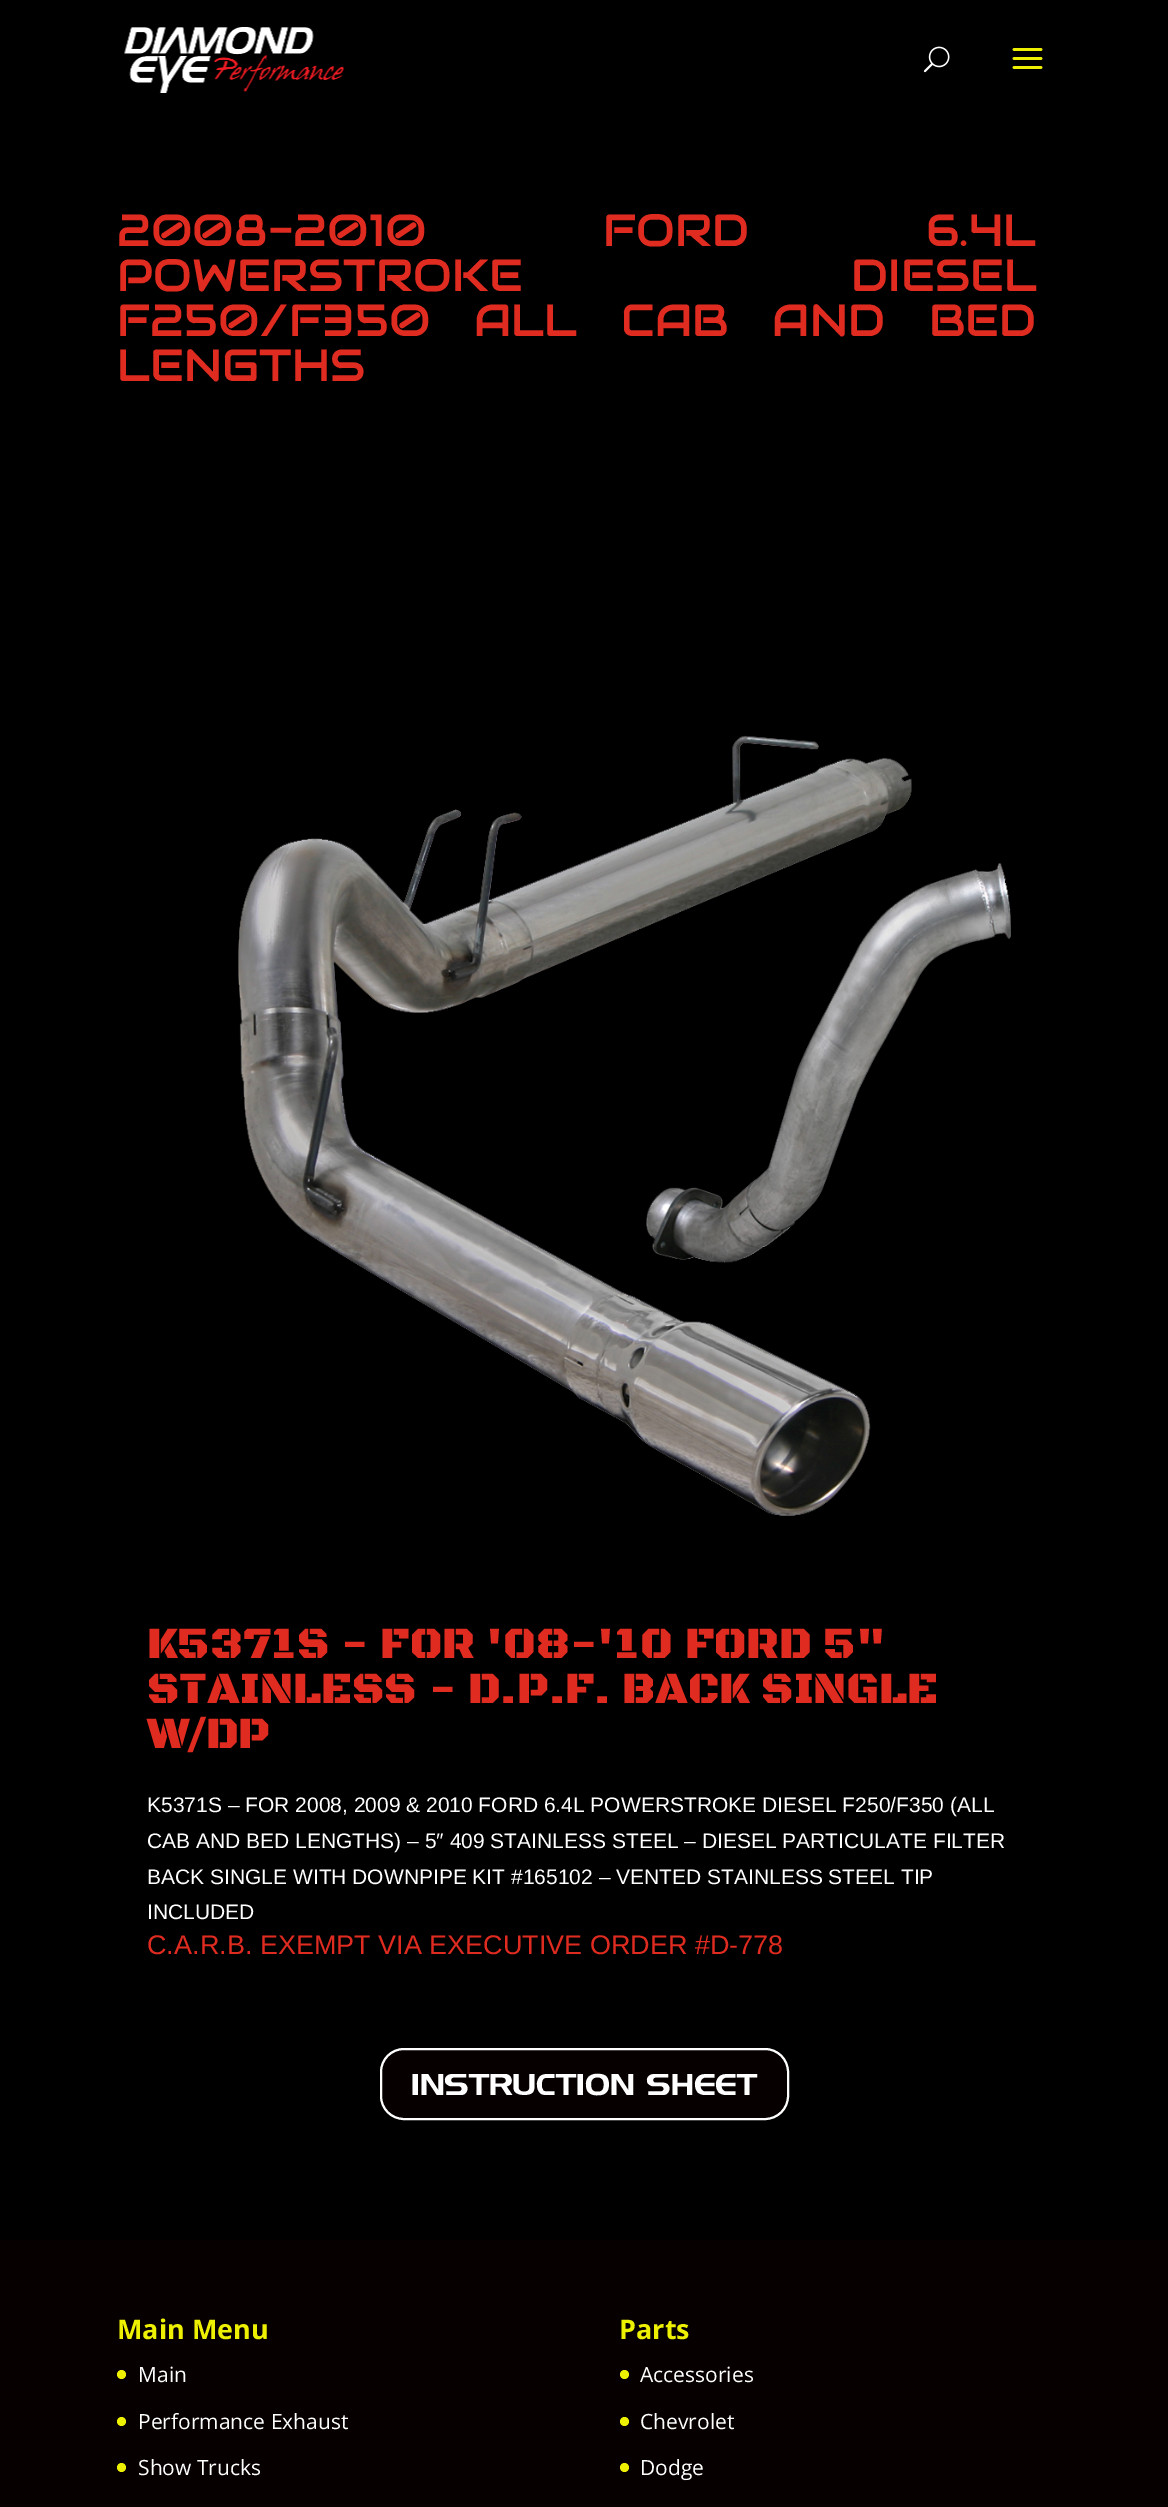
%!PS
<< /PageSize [1168 2507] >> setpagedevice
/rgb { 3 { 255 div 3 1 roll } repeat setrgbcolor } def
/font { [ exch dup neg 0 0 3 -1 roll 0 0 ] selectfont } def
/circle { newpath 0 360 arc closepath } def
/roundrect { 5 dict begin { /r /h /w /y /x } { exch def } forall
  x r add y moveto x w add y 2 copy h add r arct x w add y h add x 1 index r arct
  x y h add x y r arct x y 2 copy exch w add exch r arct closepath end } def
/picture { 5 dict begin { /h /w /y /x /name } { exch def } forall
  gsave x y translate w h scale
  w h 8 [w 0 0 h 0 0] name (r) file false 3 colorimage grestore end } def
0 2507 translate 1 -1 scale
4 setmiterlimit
6 0 1 rgb
0 0 1168 2507 rectfill
0 0 0 rgb
0 0 1168 2240 rectfill
(img/1.rgb) 124 27 220 66 picture
(img/2.rgb) 923 46 27 27 picture
(img/3.rgb) 1012 48 31 21 picture
(img/4.rgb) 238 735 773 781 picture
6 0 0 rgb
381 2049 407 70 23 roundrect gsave fill grestore
255 255 255 rgb
2 setlinewidth
stroke
237 240 0 rgb
121.5 2374.5 4.5 circle fill
121.5 2421.5 4.5 circle fill
121.5 2467.5 4.5 circle fill
624.5 2374.5 4.5 circle fill
624.5 2421.5 4.5 circle fill
624.5 2467.5 4.5 circle fill
/Audiowide-Regular 45 font
224 43 32 rgb
117 246 moveto 162 0 32 (2008-2010 FORD 6.4L) widthshow
117 291 moveto 314 0 32 (POWERSTROKE DIESEL) widthshow
117 336 moveto 29 0 32 (F250/F350 ALL CAB AND BED) widthshow
117 381 moveto (LENGTHS) show
/BlackOpsOne-Black 45 font
[
  [(K5371S - FOR '08-'10 FORD 5") 147 1658]
  [(STAINLESS - D.P.F. BACK SINGLE) 147 1703]
  [(W/DP) 147 1748]
] { aload pop moveto show } forall
/LiberationSans-Regular 21 font
255 255 255 rgb
[
  [(K5371S – FOR 2008, 2009 & 2010 FORD 6.4L POWERSTROKE DIESEL F250/F350 \(ALL) 147 1812]
  [(CAB AND BED LENGTHS\) – 5″ 409 STAINLESS STEEL – DIESEL PARTICULATE FILTER) 147 1848]
  [(BACK SINGLE WITH DOWNPIPE KIT #165102 – VENTED STAINLESS STEEL TIP) 147 1884]
  [(INCLUDED) 147 1919]
] { aload pop moveto show } forall
/LiberationSans-Regular 27 font
224 43 32 rgb
147 1954 moveto (C.A.R.B. EXEMPT VIA EXECUTIVE ORDER #D-778) show
/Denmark-Thin 30 font
255 255 255 rgb
411 2095 moveto (INSTRUCTION SHEET) show
/OpenSans-Bold 27 font
237 240 0 rgb
117 2339 moveto (Main Menu) show
/OpenSans-Regular 21 font
255 255 255 rgb
[
  [(Main) 138 2382]
  [(Performance Exhaust) 138 2429]
  [(Show Trucks) 138 2475]
] { aload pop moveto show } forall
/OpenSans-Bold 27 font
237 240 0 rgb
619 2339 moveto (Parts) show
/OpenSans-Regular 21 font
255 255 255 rgb
[
  [(Accessories) 640 2382]
  [(Chevrolet) 640 2429]
  [(Dodge) 640 2475]
] { aload pop moveto show } forall
showpage
